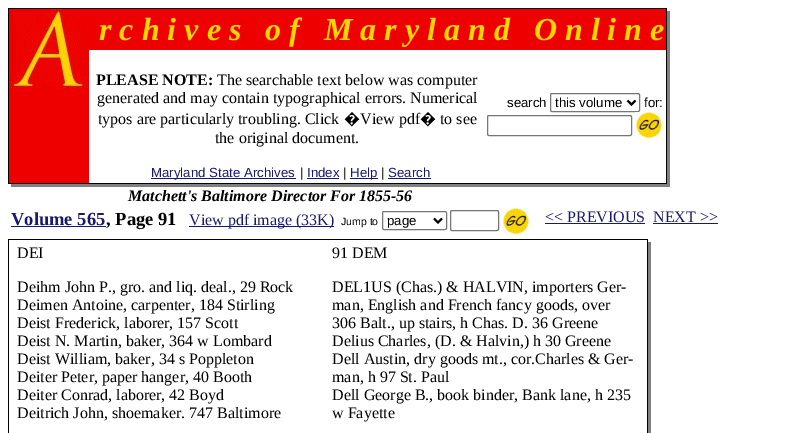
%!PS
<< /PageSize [807 433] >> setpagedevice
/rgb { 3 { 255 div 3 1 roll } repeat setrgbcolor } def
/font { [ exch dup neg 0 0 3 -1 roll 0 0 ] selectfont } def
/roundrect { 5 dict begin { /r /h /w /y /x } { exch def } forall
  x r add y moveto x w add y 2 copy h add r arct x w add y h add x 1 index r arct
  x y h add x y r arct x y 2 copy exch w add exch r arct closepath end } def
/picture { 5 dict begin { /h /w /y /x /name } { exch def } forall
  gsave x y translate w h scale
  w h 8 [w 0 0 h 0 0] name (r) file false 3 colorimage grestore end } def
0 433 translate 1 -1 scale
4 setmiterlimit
255 255 255 rgb
0 0 807 433 rectfill
[
  [8 8 1 176 0 0 0]
  [9 8 657 1 0 0 0]
  [666 8 1 176 0 0 0]
  [667 8 3 179 128 128 128]
  [667 8 3 3 255 255 255]
  [9 89 80 94 238 0 0]
] { aload pop rgb rectfill } forall
(img/1.rgb) 9 9 80 80 picture
[
  [89 9 577 41 238 0 0]
  [151 178 145 1 25 25 112]
  [307 178 32 1 25 25 112]
  [350 178 28 1 25 25 112]
  [388 178 43 1 25 25 112]
] { aload pop rgb rectfill } forall
118 118 118 rgb
550.5 93.5 89 18 1.5 roundrect stroke
0 0 0 rgb
2 setlinewidth
627.5 100.5 moveto 631.5 104.5 lineto 635.5 100.5 lineto stroke
118 118 118 rgb
1 setlinewidth
487.5 115.5 144 20 1.5 roundrect stroke
(img/2.rgb) 635 112 28 27 picture
[
  [9 183 657 1 0 0 0]
  [8 184 659 3 128 128 128]
  [8 184 3 3 255 255 255]
  [11 226 95 1 25 25 112]
  [189 226 145 1 25 25 112]
] { aload pop rgb rectfill } forall
118 118 118 rgb
382.5 211.5 64 18 1.5 roundrect stroke
0 0 0 rgb
2 setlinewidth
434 218.5 moveto 438 222.5 lineto 442 218.5 lineto stroke
118 118 118 rgb
1 setlinewidth
450.5 210.5 48 20 1.5 roundrect stroke
(img/2.rgb) 502 208 28 27 picture
[
  [545 223 100 1 25 25 112]
  [653 223 65 1 25 25 112]
  [8 239 1 194 0 0 0]
  [9 239 638 1 0 0 0]
  [647 239 1 194 0 0 0]
  [648 239 3 194 128 128 128]
  [648 239 3 3 255 255 255]
] { aload pop rgb rectfill } forall
/LiberationSerif-BoldItalic 32 font
255 215 0 rgb
99 40 moveto (r c h i v e s   o f   M a r y l a n d   O n l i n e) show
/LiberationSerif-Bold 16 font
0 0 0 rgb
96 85 moveto (PLEASE NOTE:) show
/LiberationSerif-Regular 16 font
[
  [(The searchable text below was computer) 217 85]
  [(generated and may contain typographical errors. Numerical) 97 103]
  [(typos are particularly troubling. Click) 98 124]
] { aload pop moveto show } forall
/NotoSans-Regular 16 font
344 124 moveto (�) show
/LiberationSerif-Regular 16 font
360 124 moveto (View pdf) show
/NotoSans-Regular 16 font
420 124 moveto (�) show
/LiberationSerif-Regular 16 font
440 124 moveto (to see) show
215 143 moveto (the original document.) show
/LiberationSans-Regular 13.25 font
25 25 112 rgb
151 177 moveto (Maryland State Archives) show
0 0 0 rgb
300 177 moveto (|) show
25 25 112 rgb
307 177 moveto (Index) show
0 0 0 rgb
343 177 moveto (|) show
25 25 112 rgb
350 177 moveto (Help) show
0 0 0 rgb
381 177 moveto (|) show
25 25 112 rgb
388 177 moveto (Search) show
0 0 0 rgb
[
  [(search) 507 107]
  [(this volume) 555 107]
  [(for:) 644 107]
] { aload pop moveto show } forall
/LiberationSerif-BoldItalic 16 font
128 201 moveto (Matchett's Baltimore Director For 1855-56) show
/LiberationSerif-Bold 18.5 font
25 25 112 rgb
11 225 moveto (Volume 565) show
0 0 0 rgb
106 225 moveto (, Page 91) show
/LiberationSerif-Regular 16 font
25 25 112 rgb
189 225 moveto (View pdf image \(33K\)) show
/LiberationSans-Regular 10.5 font
0 0 0 rgb
341 225 moveto (Jump to) show
/LiberationSans-Regular 13.25 font
387 225 moveto (page) show
/LiberationSerif-Regular 16 font
25 25 112 rgb
545 222 moveto (<< PREVIOUS) show
653 222 moveto (NEXT >>) show
0 0 0 rgb
[
  [(DEI) 17 258]
  [(Deihm John P., gro. and liq. deal., 29 Rock) 17 292]
  [(Deimen Antoine, carpenter, 184 Stirling) 17 310]
  [(Deist Frederick, laborer, 157 Scott) 17 328]
  [(Deist N. Martin, baker, 364 w Lombard) 17 346]
  [(Deist William, baker, 34 s Poppleton) 17 364]
  [(Deiter Peter, paper hanger, 40 Booth) 17 382]
  [(Deiter Conrad, laborer, 42 Boyd) 17 400]
  [(Deitrich John, shoemaker. 747 Baltimore) 17 418]
  [(91 DEM) 332 258]
  [(DEL1US \(Chas.\) & HALVIN, importers Ger-) 332 292]
  [(man, English and French fancy goods, over) 332 310]
  [(306 Balt., up stairs, h Chas. D. 36 Greene) 332 328]
  [(Delius Charles, \(D. & Halvin,\) h 30 Greene) 332 346]
  [(Dell Austin, dry goods mt., cor.Charles & Ger-) 332 364]
  [(man, h 97 St. Paul) 332 382]
  [(Dell George B., book binder, Bank lane, h 235) 332 400]
  [(w Fayette) 332 418]
] { aload pop moveto show } forall
showpage
